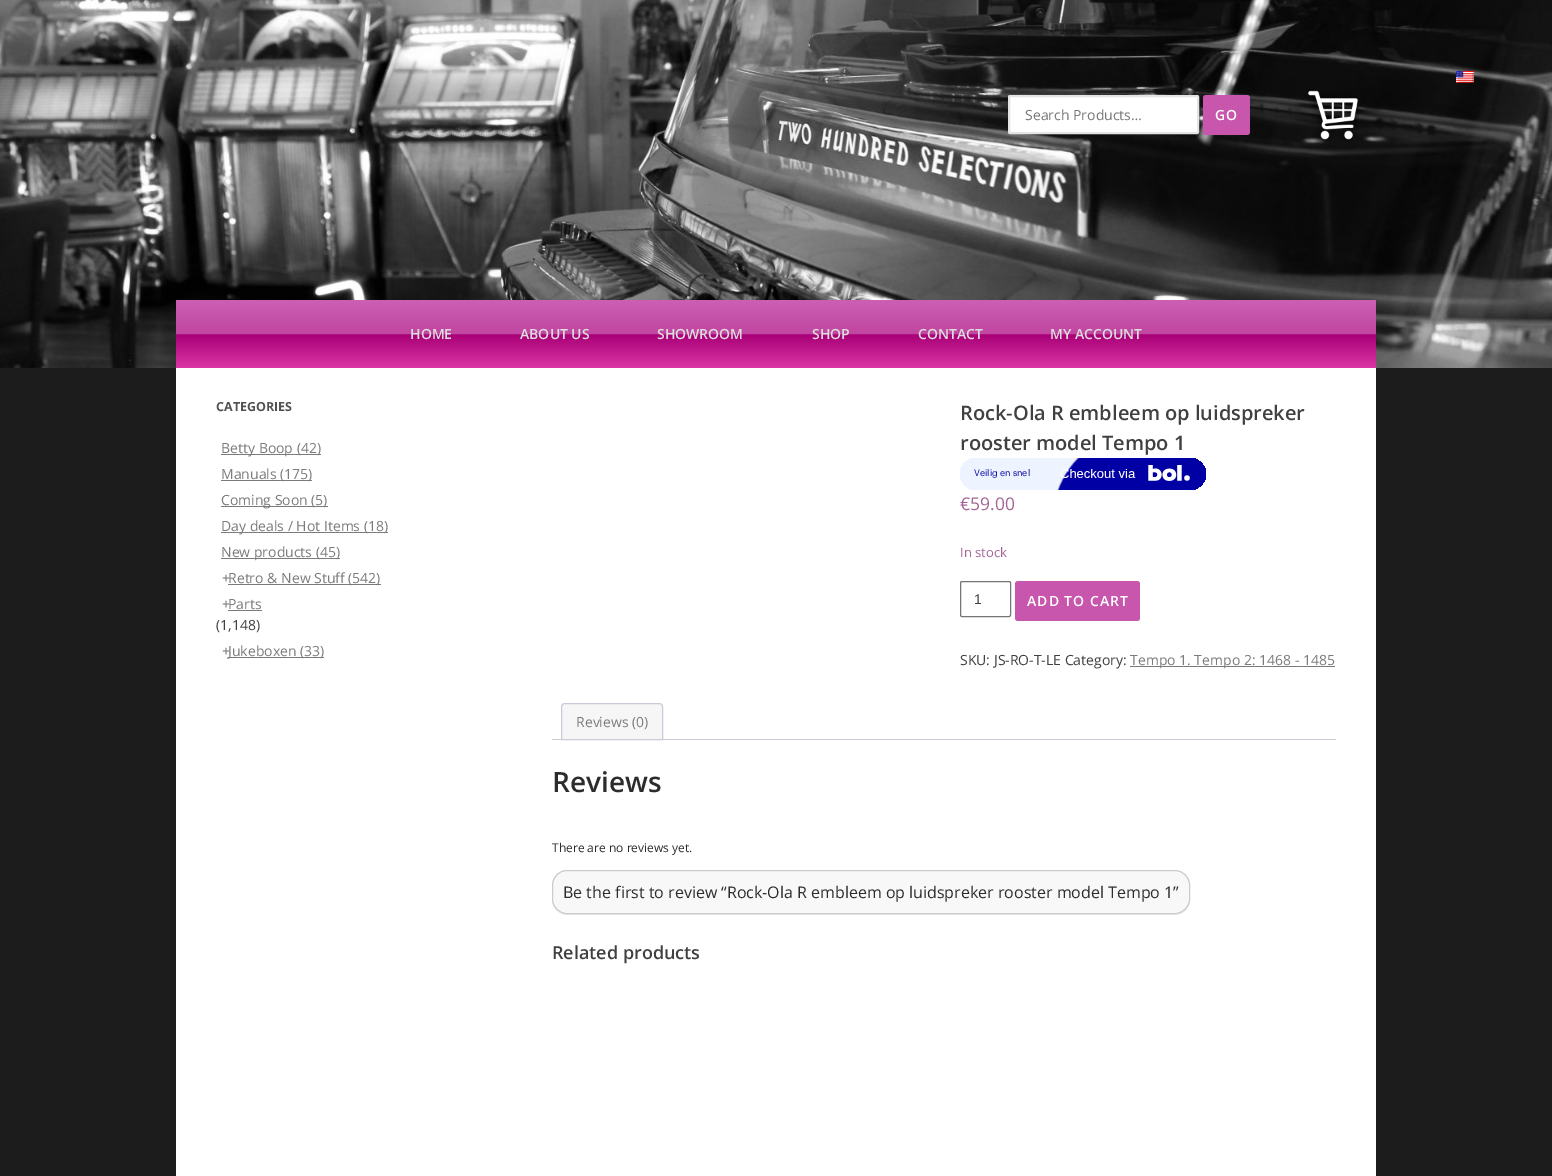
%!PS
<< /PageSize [1552 1176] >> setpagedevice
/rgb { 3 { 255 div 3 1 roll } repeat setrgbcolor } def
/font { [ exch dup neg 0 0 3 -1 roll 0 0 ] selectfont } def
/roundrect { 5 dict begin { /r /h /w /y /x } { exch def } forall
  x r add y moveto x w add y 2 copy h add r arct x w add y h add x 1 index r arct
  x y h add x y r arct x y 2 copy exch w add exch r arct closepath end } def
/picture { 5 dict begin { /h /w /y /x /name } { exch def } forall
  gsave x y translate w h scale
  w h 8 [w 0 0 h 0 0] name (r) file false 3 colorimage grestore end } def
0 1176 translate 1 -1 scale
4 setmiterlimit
28 28 28 rgb
0 0 1552 1176 rectfill
(img/2.rgb) 0 0 1552 368 picture
(img/1.rgb) 1456 71 18 12 picture
255 255 255 rgb
1009 96 189 37 1 roundrect gsave fill grestore
228 228 228 rgb
2 setlinewidth
stroke
199 86 172 rgb
1203 95 47 40 3 roundrect fill
(img/3.rgb) 1308 90 51 51 picture
gsave 176 300 moveto 1376 300 lineto 1376 368 lineto 176 368 lineto closepath clip newpath
<< /ShadingType 2 /ColorSpace /DeviceRGB /Coords [776 300 776 368] /Extend [true true] /Function << /FunctionType 3 /Domain [0 1] /Functions [<< /FunctionType 2 /Domain [0 1] /C0 [0.796 0.376 0.702] /C1 [0.757 0.275 0.631] /N 1 >> << /FunctionType 2 /Domain [0 1] /C0 [0.757 0.275 0.631] /C1 [0.659 0 0.467] /N 1 >> << /FunctionType 2 /Domain [0 1] /C0 [0.659 0 0.467] /C1 [0.859 0.212 0.643] /N 1 >>] /Bounds [0.5 0.51] /Encode [0 1 0 1 0 1] >> >> shfill grestore
[
  [176 368 1200 808 255 255 255]
  [221 454 100 1 123 123 123]
  [221 480 91 1 123 123 123]
  [221 506 107 1 123 123 123]
  [221 532 167 1 123 123 123]
  [221 558 119 1 123 123 123]
  [228 584 153 1 123 123 123]
  [228 610 34 1 123 123 123]
  [228 657 96 1 123 123 123]
] { aload pop rgb rectfill } forall
gsave 960 458 246 32 16 roundrect clip newpath 1145 522 translate 195 195 scale
<< /ShadingType 3 /ColorSpace /DeviceRGB /Coords [0 0 0 0 0 1] /Extend [true true] /Function << /FunctionType 3 /Domain [0 1] /Functions [<< /FunctionType 2 /Domain [0 1] /C0 [0 0 0.643] /C1 [0 0 0.643] /N 1 >> << /FunctionType 2 /Domain [0 1] /C0 [0 0 0.643] /C1 [0.929 0.953 1] /N 1 >> << /FunctionType 2 /Domain [0 1] /C0 [0.929 0.953 1] /C1 [0.929 0.953 1] /N 1 >>] /Bounds [0.47 0.48] /Encode [0 1 0 1 0 1] >> >> shfill grestore
(img/4.rgb) 1060 465 130 16 picture
118 118 118 rgb
1 setlinewidth
960.5 581.5 50 35 1.5 roundrect stroke
199 86 172 rgb
1015 581 125 40 3 roundrect fill
123 123 123 rgb
1130 666 205 1 rectfill
247 246 247 rgb
565 703.5 moveto 659 703.5 lineto 661 703.5 662.5 705 662.5 707 curveto 662.5 739.5 lineto 561.5 739.5 lineto 561.5 707 lineto 561.5 705 563 703.5 565 703.5 curveto closepath gsave fill grestore
207 200 216 rgb
stroke
552 739 784 1 rectfill
235 235 235 rgb
552 899 moveto 552 900 lineto 552 908 559 915 567 915 curveto 1175 915 lineto 1183 915 1190 908 1190 900 curveto 1190 899 lineto 1190 907 1183 914 1175 914 curveto 567 914 lineto 559 914 552 907 552 899 curveto closepath fill
248 248 248 rgb
552.5 870.5 637 43 14.5 roundrect gsave fill grestore
204 204 204 rgb
stroke
/OpenSans-Regular 14 font
117 117 117 rgb
1025 120 moveto (Search Products…) show
/OpenSans-SemiBold 14 font
255 255 255 rgb
1215 120 moveto 1 0 (GO) ashow
221 221 221 rgb
[
  [(HOME) 410 339]
  [(ABOUT US) 520 339]
  [(SHOWROOM) 657 339]
  [(SHOP) 812 339]
  [(CONTACT) 918 339]
  [(MY ACCOUNT) 1050 339]
] { aload pop moveto show } forall
/OpenSans-Bold 12.5 font
82 82 82 rgb
216 411 moveto (CATEGORIES) show
/OpenSans-Regular 14 font
123 123 123 rgb
[
  [(Betty Boop \(42\)) 221 453]
  [(Manuals \(175\)) 221 479]
  [(Coming Soon \(5\)) 221 505]
  [(Day deals / Hot Items \(18\)) 221 531]
  [(New products \(45\)) 221 557]
] { aload pop moveto show } forall
117 117 117 rgb
222 583 moveto (+) show
123 123 123 rgb
228 583 moveto (Retro & New Stuff \(542\)) show
117 117 117 rgb
222 609 moveto (+) show
123 123 123 rgb
228 609 moveto (Parts) show
64 64 64 rgb
216 630 moveto (\(1,148\)) show
117 117 117 rgb
222 656 moveto (+) show
123 123 123 rgb
228 656 moveto (Jukeboxen \(33\)) show
/OpenSans-SemiBold 20 font
64 64 64 rgb
960 420 moveto (Rock-Ola R embleem op luidspreker) show
960 450 moveto (rooster model Tempo 1) show
/Graphik-Regular 9 font
0 0 164 rgb
974 476 moveto (Veilig en snel) show
/OpenSans-Regular 17.5 font
164 100 151 rgb
960 510 moveto (€59.00) show
/OpenSans-Regular 13 font
960 557 moveto (In stock) show
/LiberationSans-Regular 14 font
64 64 64 rgb
974 604 moveto (1) show
/OpenSans-SemiBold 14 font
255 255 255 rgb
1027 606 moveto 1 0 (ADD TO CART) ashow
/OpenSans-Regular 14 font
64 64 64 rgb
960 665 moveto (SKU: JS-RO-T-LE Category:) show
123 123 123 rgb
1130 665 moveto (Tempo 1. Tempo 2: 1468 - 1485) show
576 727 moveto (Reviews \(0\)) show
/OpenSans-SemiBold 28 font
44 44 44 rgb
552 792 moveto (Reviews) show
/OpenSans-Regular 12 font
552 852 moveto (There are no reviews yet.) show
/OpenSans-Regular 16 font
563 898 moveto (Be the first to review “Rock-Ola R embleem op luidspreker rooster model Tempo 1”) show
/OpenSans-SemiBold 18 font
64 64 64 rgb
552 959 moveto (Related products) show
showpage
